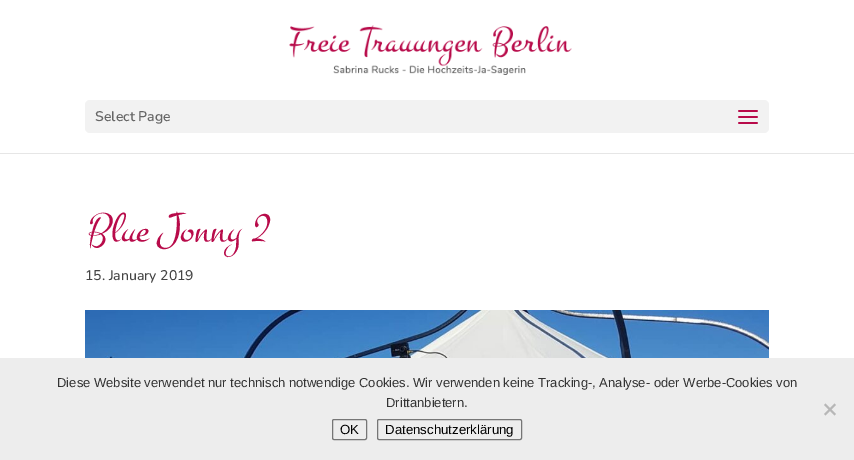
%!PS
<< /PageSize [854 460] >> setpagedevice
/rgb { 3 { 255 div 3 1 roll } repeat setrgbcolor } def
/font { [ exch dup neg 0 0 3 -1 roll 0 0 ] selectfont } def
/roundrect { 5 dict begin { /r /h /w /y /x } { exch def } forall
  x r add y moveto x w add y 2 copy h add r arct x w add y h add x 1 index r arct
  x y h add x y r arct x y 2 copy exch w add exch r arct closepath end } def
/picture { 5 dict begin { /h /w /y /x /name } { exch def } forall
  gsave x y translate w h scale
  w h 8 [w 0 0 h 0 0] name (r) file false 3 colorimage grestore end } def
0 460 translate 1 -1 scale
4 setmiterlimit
255 255 255 rgb
0 0 854 460 rectfill
230 230 230 rgb
0 153 854 1 rectfill
(img/1.rgb) 289 25 283 50 picture
242 242 242 rgb
85 100 684 33 5 roundrect fill
(img/2.rgb) 738 110 20 14 picture
(img/3.rgb) 85 310 684 48 picture
237 237 237 rgb
0 358 854 102 rectfill
183 183 183 rgb
834.5 403.5 moveto 836 405 lineto 825.5 415.5 lineto 824 414 lineto closepath fill
824 405 moveto 825.5 403.5 lineto 836 414 lineto 834.5 415.5 lineto closepath fill
118 118 118 rgb
332.5 419.5 34 20 1.5 roundrect stroke
377.5 419.5 144 20 1.5 roundrect stroke
/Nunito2-ExtraLight 14 font
102 102 102 rgb
95 121 moveto (Select Page) show
/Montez-Italic 42 font
184 11 74 rgb
85 241 moveto (Blue Jonny 2) show
/Nunito-ExtraLight 14 font
68 68 68 rgb
85 280 moveto (15. January 2019) show
/LiberationSans-Regular 13 font
51 51 51 rgb
57 387 moveto (Diese Website verwendet nur technisch notwendige Cookies. Wir verwenden keine Tracking-, Analyse- oder Werbe-Cookies von) show
386 407 moveto (Drittanbietern.) show
/LiberationSans-Regular 13.25 font
0 0 0 rgb
340 434 moveto (OK) show
385 434 moveto (Datenschutzerklärung) show
showpage
